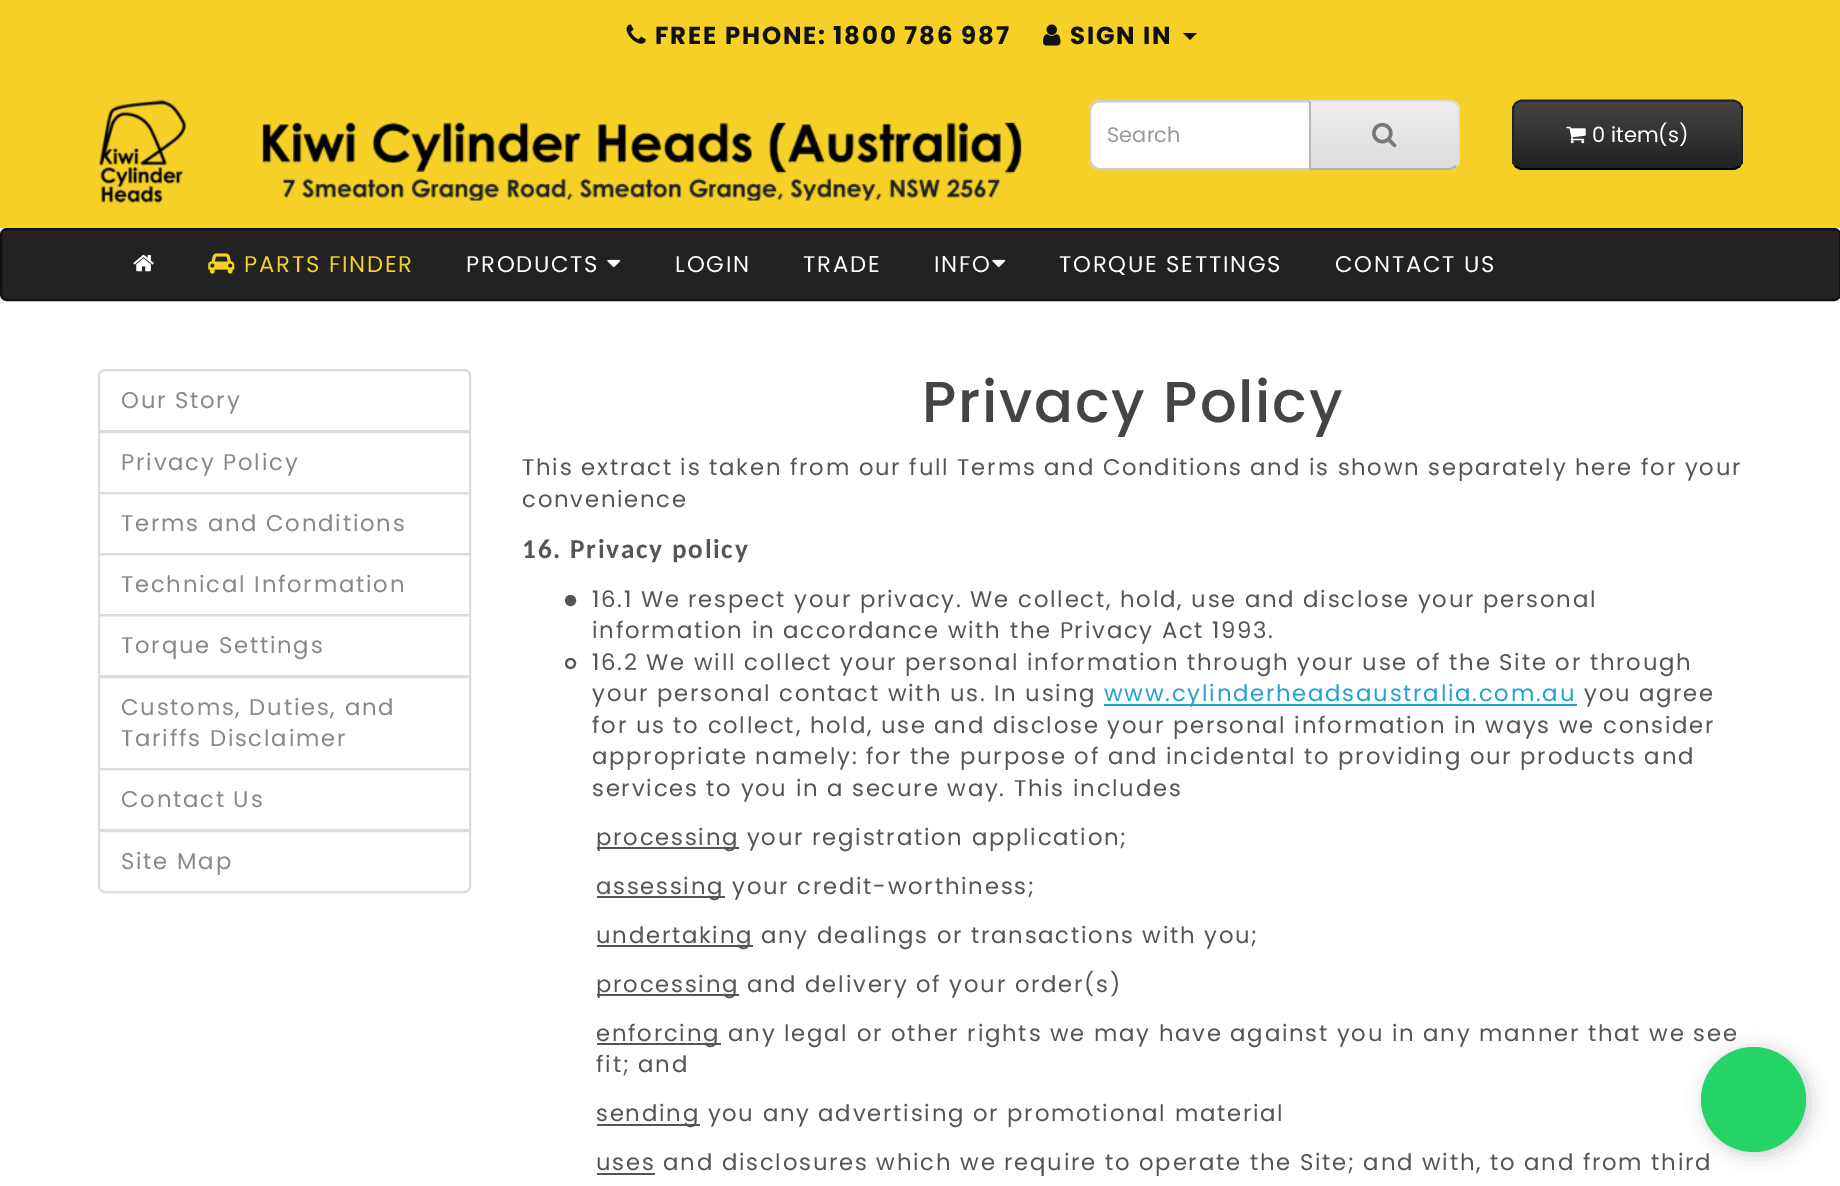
%!PS
<< /PageSize [1840 1186] /PageUsesTransparency true >> setpagedevice
/rgb { 3 { 255 div 3 1 roll } repeat setrgbcolor } def
/font { [ exch dup neg 0 0 3 -1 roll 0 0 ] selectfont } def
/alpha { dup .setfillconstantalpha .setstrokeconstantalpha } def
/circle { newpath 0 360 arc closepath } def
/roundrect { 5 dict begin { /r /h /w /y /x } { exch def } forall
  x r add y moveto x w add y 2 copy h add r arct x w add y h add x 1 index r arct
  x y h add x y r arct x y 2 copy exch w add exch r arct closepath end } def
/shadow { 12 dict begin { /a /b /q /h /w /y /x } { exch def } forall gsave /was 0 def
  9 -2 -9 { dup b mul 4 div /e exch def 1 sub .425 mul 2.718 exch exp 1 add a .99 .min exch div /now exch def
    1 1 now sub 1 was sub div sub alpha /was now def
    w h .min e 2 mul add 0 gt { x e sub y e sub w e 2 mul add h e 2 mul add
      q e add b .6 mul add w h .min 2 div e add .min 0 .max roundrect fill } if } for grestore end } def
/picture { 5 dict begin { /h /w /y /x /name } { exch def } forall
  gsave x y translate w h scale
  w h 8 [w 0 0 h 0 0] name (r) file false 3 colorimage grestore end } def
0 .pushpdf14devicefilter
0 1186 translate 1 -1 scale
4 setmiterlimit
255 255 255 rgb
0 0 1840 1186 rectfill
245 209 39 rgb
0 0 1840 228 rectfill
(img/1.rgb) 626 24 20 20 picture
(img/2.rgb) 1043 24 18 22 picture
17 17 17 rgb
1183 33 moveto 1197 33 lineto 1190 40 lineto closepath fill
(img/3.rgb) 99 99 88 104 picture
(img/4.rgb) 262 122 760 79 picture
255 255 255 rgb
1100 100 moveto 1311 100 lineto 1311 170 lineto 1100 170 lineto 1094 170 1089 165 1089 159 curveto 1089 111 lineto 1089 105 1094 100 1100 100 curveto closepath fill
236 236 236 rgb
1099 103 moveto 1309 103 lineto 1309 102 lineto 1099 102 lineto 1094 102 1090 106 1090 111 curveto 1090 112 lineto 1090 107 1094 103 1099 103 curveto closepath fill
204 204 204 rgb
2 setlinewidth
1100 101 moveto 1310 101 lineto 1310 169 lineto 1100 169 lineto 1094.5 169 1090 164.5 1090 159 curveto 1090 111 lineto 1090 105.5 1094.5 101 1100 101 curveto closepath stroke
231 231 231 rgb
1309 100 moveto 1449 100 lineto 1455 100 1460 105 1460 111 curveto 1460 159 lineto 1460 165 1455 170 1449 170 curveto 1309 170 lineto closepath fill
gsave
1309 100 moveto 1449 100 lineto 1455 100 1460 105 1460 111 curveto 1460 159 lineto 1460 165 1455 170 1449 170 curveto 1309 170 lineto closepath clip newpath
gsave 1311 102 moveto 1460 102 lineto 1460 168 lineto 1311 168 lineto closepath clip newpath
<< /ShadingType 2 /ColorSpace /DeviceRGB /Coords [1384 102 1384 168] /Extend [true true] /Function << /FunctionType 2 /Domain [0 1] /C0 [0.933 0.933 0.933] /C1 [0.867 0.867 0.867] /N 1 >> >> shfill grestore
grestore
221 221 221 rgb
1457 103 moveto 1455 101 1452 100 1449 100 curveto 1309 100 lineto 1311 102 lineto 1449 102 lineto 1451 102 1454 103 1455 104 curveto closepath fill
1457 103 moveto 1458 104 1459 105 1460 107 curveto 1460 162 lineto 1457 167 lineto 1455 165 lineto 1457 164 1458 162 1458 159 curveto 1458 110 lineto 1458 107 1457 105 1455 104 curveto closepath fill
179 179 179 rgb
1451 170 moveto 1309 170 lineto 1311 168 lineto 1449 168 lineto 1451 168 1454 167 1455 165 curveto 1457 167 lineto 1455 168 1453 169 1451 170 curveto closepath fill
183 183 183 rgb
1311 102 moveto 1309 100 lineto 1309 170 lineto 1311 168 lineto closepath fill
(img/5.rgb) 1372 122 25 26 picture
54 54 54 rgb
1512 100 231 70 11 roundrect fill
gsave
1512 100 231 70 11 roundrect clip newpath
gsave 1512 102 moveto 1743 102 lineto 1743 168 lineto 1512 168 lineto closepath clip newpath
<< /ShadingType 2 /ColorSpace /DeviceRGB /Coords [1628 101 1628 168] /Extend [true true] /Function << /FunctionType 2 /Domain [0 1] /C0 [0.267 0.267 0.267] /C1 [0.133 0.133 0.133] /N 1 >> >> shfill grestore
grestore
0 0 0 rgb
1.8 setlinewidth
1739.5 166 moveto 1737.5 168 1735 169 1732.5 169 curveto 1522.5 169 lineto 1520 169 1517.5 168 1515.5 166 curveto stroke
34 34 34 rgb
1515.5 166 moveto 1514 164.5 1513 162 1513 159 curveto 1513 110 lineto 1513 107.5 1514 105 1515.5 103.5 curveto 1517.5 101.5 1520 100.5 1522.5 100.5 curveto 1732.5 100.5 lineto 1735 100.5 1737.5 101.5 1739.5 103.5 curveto 1741 105 1742 107.5 1742 110 curveto 1742 159 lineto 1742 162 1741 164.5 1739.5 166 curveto stroke
(img/6.rgb) 1566 126 20 18 picture
238 238 238 rgb
0 228 1840 73 rectfill
34 34 34 rgb
1 229 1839 71 6 roundrect gsave fill grestore
17 17 17 rgb
2 setlinewidth
stroke
(img/7.rgb) 133 255 21 17 picture
(img/8.rgb) 208 253 27 21 picture
(img/9.rgb) 607 259 14 9 picture
(img/9.rgb) 992 259 14 9 picture
221 221 221 rgb
105 370 moveto 464 370 lineto 467.5 370 470 372.5 470 376 curveto 470 431 lineto 99 431 lineto 99 376 lineto 99 372.5 101.5 370 105 370 curveto closepath stroke
99 432 371 61 rectstroke
99 493 371 61 rectstroke
99 554 371 61 rectstroke
99 615 371 61 rectstroke
99 677 371 92 rectstroke
99 769 371 61 rectstroke
255 255 255 rgb
99 831 moveto 470 831 lineto 470 886 lineto 470 889.5 467.5 892 464 892 curveto 105 892 lineto 101.5 892 99 889.5 99 886 curveto closepath gsave fill grestore
221 221 221 rgb
stroke
85 85 85 rgb
570.5 600.5 4.5 circle gsave fill grestore
stroke
570.5 663.5 4.5 circle stroke
[
  [1104 704 473 2 35 161 209]
  [597 847 142 2 85 85 85]
  [597 896 128 2 85 85 85]
  [597 945 156 2 85 85 85]
  [597 994 142 2 85 85 85]
  [597 1043 124 2 85 85 85]
  [597 1124 103 2 85 85 85]
  [597 1173 58 2 85 85 85]
] { aload pop rgb rectfill } forall
0 0 0 rgb
1705 1050 105 105 52.5 9 0.2 shadow
/Poppins-Bold 24.5 font
17 17 17 rgb
655 44 moveto 1.75 0 (FREE PHONE: 1800 786 987) ashow
1070 44 moveto 1.75 0 (SIGN IN) ashow
/Poppins-Regular 21 font
153 153 153 rgb
1107 142 moveto (Search) show
255 255 255 rgb
1592 142 moveto (0 item\(s\)) show
/Poppins-Regular 22.75 font
245 209 39 rgb
244 272 moveto 1.75 0 (PARTS FINDER) ashow
255 255 255 rgb
466 272 moveto 1.75 0 (PRODUCTS) ashow
675 272 moveto 1.75 0 (LOGIN) ashow
803 272 moveto 1.75 0 (TRADE) ashow
934 272 moveto 1.75 0 (INFO) ashow
1059 272 moveto 1.75 0 (TORQUE SETTINGS) ashow
1335 272 moveto 1.75 0 (CONTACT US) ashow
136 136 136 rgb
121 408 moveto 1.75 0 (Our Story) ashow
121 470 moveto 1.75 0 (Privacy Policy) ashow
121 531 moveto 1.75 0 (Terms and Conditions) ashow
121 592 moveto 1.75 0 (Technical Information) ashow
121 653 moveto 1.75 0 (Torque Settings) ashow
121 715 moveto 1.75 0 (Customs, Duties, and) ashow
121 746 moveto 1.75 0 (Tariffs Disclaimer) ashow
121 807 moveto 1.75 0 (Contact Us) ashow
121 869 moveto 1.75 0 (Site Map) ashow
/Poppins-Medium 57.75 font
68 68 68 rgb
922 422 moveto 1.75 0 (Privacy Policy) ashow
/Poppins-Regular 22.75 font
85 85 85 rgb
522 475 moveto 1.75 0 (This extract is taken from our full Terms and Conditions and is shown separately here for your) ashow
522 507 moveto 1.75 0 (convenience) ashow
/Carlito-Bold 27.25 font
522 558 moveto 1.75 0 (16. Privacy policy) ashow
/Poppins-Regular 22.75 font
592 607 moveto 1.75 0 (16.1 We respect your privacy. We collect, hold, use and disclose your personal) ashow
592 638 moveto 1.75 0 (information in accordance with the Privacy Act 1993.) ashow
592 670 moveto 1.75 0 (16.2 We will collect your personal information through your use of the Site or through) ashow
592 701 moveto 1.75 0 (your personal contact with us. In using) ashow
35 161 209 rgb
1104 701 moveto 1.75 0 (www.cylinderheadsaustralia.com.au) ashow
85 85 85 rgb
1584 701 moveto 1.75 0 (you agree) ashow
592 733 moveto 1.75 0 (for us to collect, hold, use and disclose your personal information in ways we consider) ashow
592 764 moveto 1.75 0 (appropriate namely: for the purpose of and incidental to providing our products and) ashow
592 796 moveto 1.75 0 (services to you in a secure way. This includes) ashow
596 845 moveto 1.75 0 (processing your registration application;) ashow
596 894 moveto 1.75 0 (assessing your credit-worthiness;) ashow
596 943 moveto 1.75 0 (undertaking any dealings or transactions with you;) ashow
596 992 moveto 1.75 0 (processing and delivery of your order\(s\)) ashow
596 1041 moveto 1.75 0 (enforcing any legal or other rights we may have against you in any manner that we see) ashow
596 1072 moveto 1.75 0 (fit; and) ashow
596 1121 moveto 1.75 0 (sending you any advertising or promotional material) ashow
596 1170 moveto 1.75 0 (uses and disclosures which we require to operate the Site; and with, to and from third) ashow
37 211 102 rgb
1753.5 1099.5 52.5 circle fill
.poppdf14devicefilter showpage
